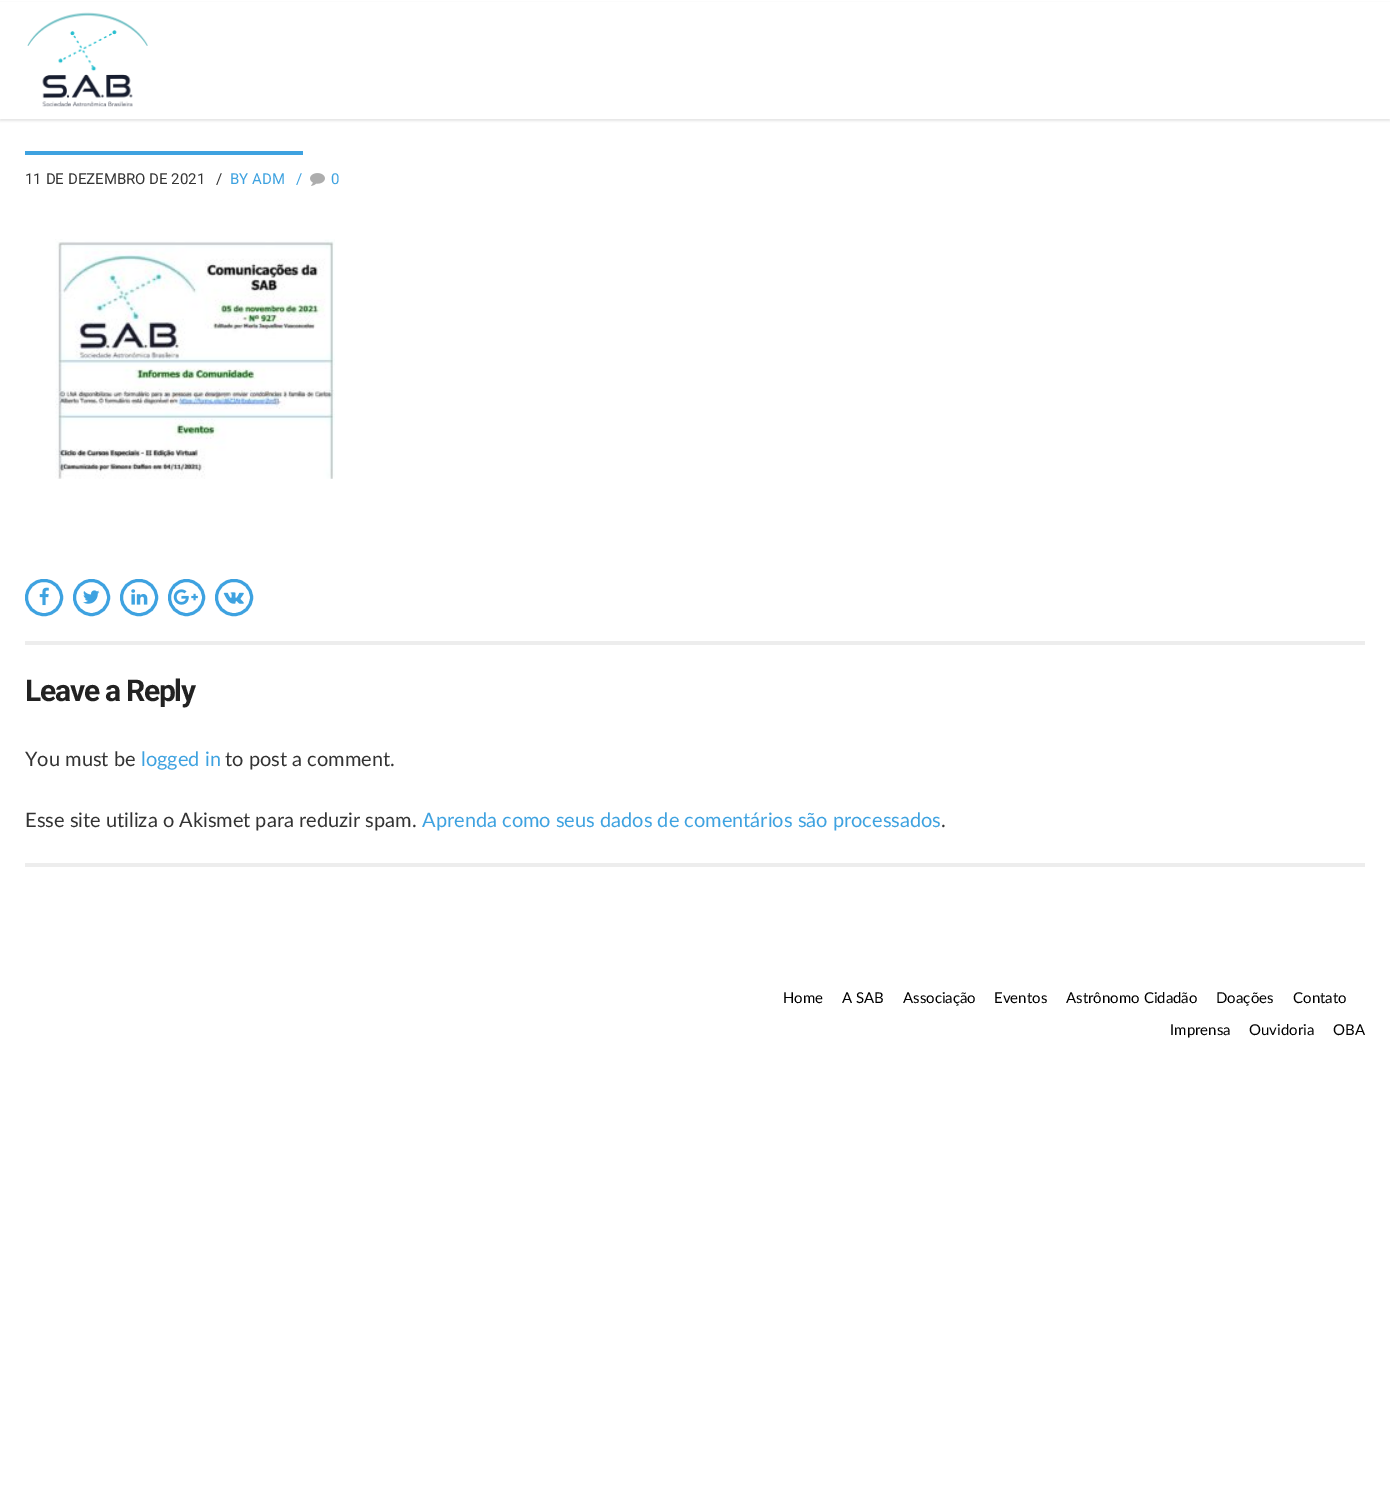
%!PS
<< /PageSize [1390 1510] /PageUsesTransparency true >> setpagedevice
/rgb { 3 { 255 div 3 1 roll } repeat setrgbcolor } def
/font { [ exch dup neg 0 0 3 -1 roll 0 0 ] selectfont } def
/alpha { dup .setfillconstantalpha .setstrokeconstantalpha } def
/circle { newpath 0 360 arc closepath } def
/roundrect { 5 dict begin { /r /h /w /y /x } { exch def } forall
  x r add y moveto x w add y 2 copy h add r arct x w add y h add x 1 index r arct
  x y h add x y r arct x y 2 copy exch w add exch r arct closepath end } def
/shadow { 12 dict begin { /a /b /q /h /w /y /x } { exch def } forall gsave /was 0 def
  9 -2 -9 { dup b mul 4 div /e exch def 1 sub .425 mul 2.718 exch exp 1 add a .99 .min exch div /now exch def
    1 1 now sub 1 was sub div sub alpha /was now def
    w h .min e 2 mul add 0 gt { x e sub y e sub w e 2 mul add h e 2 mul add
      q e add b .6 mul add w h .min 2 div e add .min 0 .max roundrect fill } if } for grestore end } def
/picture { 5 dict begin { /h /w /y /x /name } { exch def } forall
  gsave x y translate w h scale
  w h 8 [w 0 0 h 0 0] name (r) file false 3 colorimage grestore end } def
0 .pushpdf14devicefilter
0 1510 translate 1 -1 scale
4 setmiterlimit
255 255 255 rgb
0 0 1390 1510 rectfill
0 0 0 rgb
0 3 1390 118 0 1 0.1 shadow
255 255 255 rgb
0 2 1390 117 rectfill
(img/1.rgb) 27 12 121 95 picture
62 162 224 rgb
25 151 278 4 rectfill
(img/2.rgb) 310 173 15 13 picture
(img/3.rgb) 55 239 280 240 picture
3 setlinewidth
26.5 580.5 35 34 17 roundrect stroke
(img/4.rgb) 39 587 10 19 picture
91.5 597.5 17 circle stroke
(img/5.rgb) 83 590 17 14 picture
121.5 580.5 35 34 17 roundrect stroke
(img/6.rgb) 131 589 17 16 picture
186.5 597.5 17 circle stroke
(img/7.rgb) 173 589 25 16 picture
216.5 580.5 35 34 17 roundrect stroke
(img/8.rgb) 223 592 21 12 picture
237 237 237 rgb
25 641 1340 4 rectfill
25 863 1340 4 rectfill
/Roboto-Regular 15 font
51 51 51 rgb
25 184 moveto (11 DE DEZEMBRO DE 2021) show
216 184 moveto (/) show
62 162 224 rgb
[
  [(BY ADM) 230 184]
  [(/) 296 184]
  [(0) 331 184]
] { aload pop moveto show } forall
/Roboto-Bold 30 font
34 34 34 rgb
25 701 moveto -1.25 0 (Leave a Reply) ashow
/Lato-Regular 20 font
51 51 51 rgb
25 766 moveto (You must be) show
62 162 224 rgb
141 766 moveto (logged in) show
51 51 51 rgb
225 766 moveto (to post a comment.) show
25 827 moveto (Esse site utiliza o Akismet para reduzir spam.) show
62 162 224 rgb
422 827 moveto (Aprenda como seus dados de comentários são processados) show
51 51 51 rgb
941 827 moveto (.) show
/Lato-Regular 15 font
0 0 0 rgb
[
  [(Home) 783 1003]
  [(A SAB) 842 1003]
  [(Associação) 903 1003]
  [(Eventos) 994 1003]
  [(Astrônomo Cidadão) 1066 1003]
  [(Doações) 1216 1003]
  [(Contato) 1293 1003]
  [(Imprensa) 1170 1035]
  [(Ouvidoria) 1249 1035]
  [(OBA) 1333 1035]
] { aload pop moveto show } forall
.poppdf14devicefilter showpage
